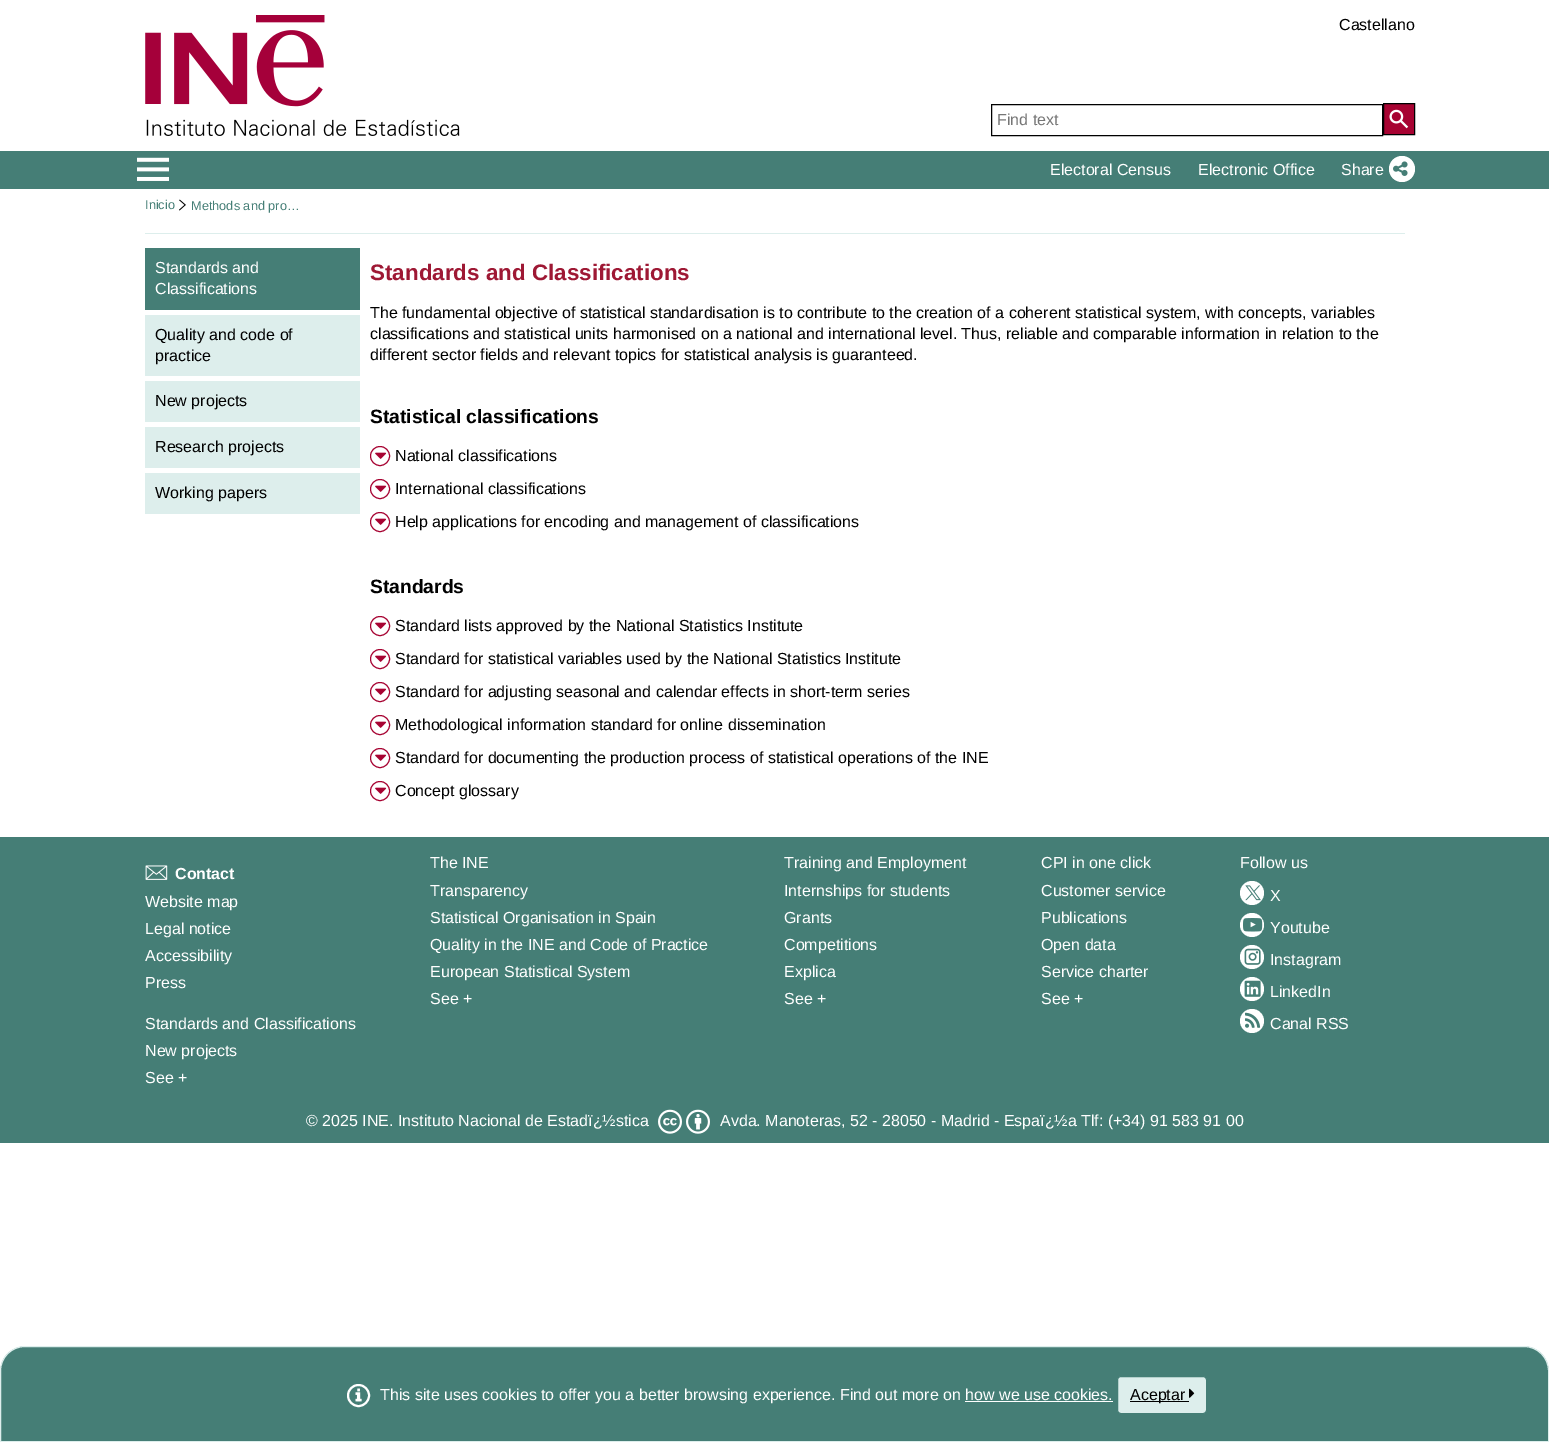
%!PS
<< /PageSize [1549 1442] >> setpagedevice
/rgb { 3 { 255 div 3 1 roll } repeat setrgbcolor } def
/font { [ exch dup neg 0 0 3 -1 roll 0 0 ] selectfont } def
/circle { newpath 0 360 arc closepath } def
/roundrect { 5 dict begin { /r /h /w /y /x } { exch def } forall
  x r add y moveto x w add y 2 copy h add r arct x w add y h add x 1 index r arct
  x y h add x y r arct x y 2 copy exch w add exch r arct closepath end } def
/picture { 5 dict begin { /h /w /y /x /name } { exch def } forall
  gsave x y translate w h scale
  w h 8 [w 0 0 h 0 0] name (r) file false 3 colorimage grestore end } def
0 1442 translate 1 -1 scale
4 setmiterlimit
255 255 255 rgb
0 0 1549 1442 rectfill
(img/1.rgb) 145 15 315 121 picture
0 0 0 rgb
991.5 104.5 391 31 rectstroke
167 3 50 rgb
1383.5 103.5 moveto 1414.5 103.5 lineto 1414.5 134.5 lineto 1383.5 134.5 lineto closepath gsave fill grestore
0 0 0 rgb
stroke
(img/2.rgb) 1389 109 20 20 picture
69 126 118 rgb
0 151 1549 38 rectfill
(img/3.rgb) 137 157 32 24 picture
255 255 255 rgb
1402 169 13 circle fill
(img/4.rgb) 1393 161 15 15 picture
221 238 236 rgb
145 233 1260 1 rectfill
(img/5.rgb) 179 199 7 12 picture
[
  [145 248 215 62 69 126 118]
  [145 315 215 61 221 238 236]
  [145 381 215 41 221 238 236]
  [145 427 215 41 221 238 236]
  [145 473 215 41 221 238 236]
] { aload pop rgb rectfill } forall
167 3 50 rgb
380 456 9.5 circle stroke
(img/6.rgb) 375 452 12 7 picture
380 489 9.5 circle stroke
(img/6.rgb) 375 485 12 7 picture
380 522 9.5 circle stroke
(img/6.rgb) 375 518 12 7 picture
380 626 9.5 circle stroke
(img/6.rgb) 375 622 12 7 picture
380 659 9.5 circle stroke
(img/6.rgb) 375 655 12 7 picture
380 692 9.5 circle stroke
(img/6.rgb) 375 688 12 7 picture
380 725 9.5 circle stroke
(img/6.rgb) 375 721 12 7 picture
380 758 9.5 circle stroke
(img/6.rgb) 375 754 12 7 picture
380 791 9.5 circle stroke
(img/6.rgb) 375 787 12 7 picture
69 126 118 rgb
0 837 1549 306 rectfill
(img/7.rgb) 145 865 23 15 picture
255 255 255 rgb
1252 893 12 circle fill
(img/8.rgb) 1245 885 16 16 picture
1252 925 12 circle fill
(img/9.rgb) 1243 918 20 14 picture
1252 957 12 circle fill
(img/10.rgb) 1244 948 17 17 picture
1252 989 12 circle fill
(img/11.rgb) 1244 980 17 17 picture
1252 1021 12 circle fill
(img/12.rgb) 1245 1012 16 16 picture
(img/13.rgb) 658 1109 24 25 picture
(img/14.rgb) 686 1109 24 25 picture
69 126 118 rgb
25 1346.5 moveto 1524 1346.5 lineto 1537.5 1346.5 1548.5 1357.5 1548.5 1371 curveto 1548.5 1441.5 lineto 0.5 1441.5 lineto 0.5 1371 lineto 0.5 1357.5 11.5 1346.5 25 1346.5 curveto closepath gsave fill grestore
221 238 236 rgb
stroke
255 255 255 rgb
2 setlinewidth
358.5 1395.5 10.5 circle stroke
(img/15.rgb) 355 1388 7 14 picture
221 238 236 rgb
1117.5 1376.5 89 37 3.5 roundrect gsave fill grestore
69 126 118 rgb
1 setlinewidth
stroke
0 0 0 rgb
1130 1401 59 1 rectfill
(img/16.rgb) 1189 1388 6 10 picture
255 255 255 rgb
965 1401 148 1 rectfill
/LiberationSans-Regular 16 font
0 0 0 rgb
1339 30 moveto (Castellano) show
118 118 118 rgb
997 125 moveto (Find text) show
255 255 255 rgb
[
  [(Electoral Census) 1050 175]
  [(Electronic Office) 1198 175]
  [(Share) 1341 175]
] { aload pop moveto show } forall
/LiberationSans-Regular 12.75 font
69 126 118 rgb
145 209 moveto (Inicio) show
191 210 moveto (Methods and pro…) show
/LiberationSans-Regular 16 font
255 255 255 rgb
155 273 moveto (Standards and) show
155 294 moveto (Classifications) show
0 0 0 rgb
[
  [(Quality and code of) 155 340]
  [(practice) 155 361]
  [(New projects) 155 406]
  [(Research projects) 155 452]
  [(Working papers) 155 498]
] { aload pop moveto show } forall
/LiberationSans-Bold 22.4 font
158 24 52 rgb
370 280 moveto (Standards and Classifications) show
/LiberationSans-Regular 16 font
0 0 0 rgb
[
  [(The fundamental objective of statistical standardisation is to contribute to the creation of a coherent statistical system, with concepts, variables) 370 318]
  [(classifications and statistical units harmonised on a national and international level. Thus, reliable and comparable information in relation to the) 370 339]
  [(different sector fields and relevant topics for statistical analysis is guaranteed.) 370 360]
] { aload pop moveto show } forall
/LiberationSans-Bold 19.25 font
370 423 moveto (Statistical classifications) show
/LiberationSans-Regular 16 font
[
  [(National classifications) 395 461]
  [(International classifications) 395 494]
  [(Help applications for encoding and management of classifications) 395 527]
] { aload pop moveto show } forall
/LiberationSans-Bold 19.25 font
370 593 moveto (Standards) show
/LiberationSans-Regular 16 font
[
  [(Standard lists approved by the National Statistics Institute) 395 631]
  [(Standard for statistical variables used by the National Statistics Institute) 395 664]
  [(Standard for adjusting seasonal and calendar effects in short-term series) 395 697]
  [(Methodological information standard for online dissemination) 395 730]
  [(Standard for documenting the production process of statistical operations of the INE) 395 763]
  [(Concept glossary) 395 796]
] { aload pop moveto show } forall
/LiberationSans-Bold 16 font
255 255 255 rgb
175 879 moveto (Contact) show
/LiberationSans-Regular 16 font
[
  [(Website map) 145 907]
  [(Legal notice) 145 934]
  [(Accessibility) 145 961]
  [(Press) 145 988]
  [(Standards and Classifications) 145 1029]
  [(New projects) 145 1056]
  [(See +) 145 1083]
  [(The INE) 430 868]
  [(Transparency) 430 896]
  [(Statistical Organisation in Spain) 430 923]
  [(Quality in the INE and Code of Practice) 430 950]
  [(European Statistical System) 430 977]
  [(See +) 430 1004]
  [(Training and Employment) 784 868]
  [(Internships for students) 784 896]
  [(Grants) 784 923]
  [(Competitions) 784 950]
  [(Explica) 784 977]
  [(See +) 784 1004]
  [(CPI in one click) 1041 868]
  [(Customer service) 1041 896]
  [(Publications) 1041 923]
  [(Open data) 1041 950]
  [(Service charter) 1041 977]
  [(See +) 1041 1004]
  [(Follow us) 1240 868]
  [(X) 1270 901]
  [(Youtube) 1270 933]
  [(Instagram) 1270 965]
  [(LinkedIn) 1270 997]
  [(Canal RSS) 1270 1029]
  [(© 2025 INE. Instituto Nacional de Estadï¿½stica) 306 1126]
  [(Avda. Manoteras, 52 - 28050 - Madrid - Espaï¿½a Tlf: \(+34\) 91 583 91 00) 720 1126]
  [(This site uses cookies to offer you a better browsing experience. Find out more on how we use cookies.) 380 1400]
] { aload pop moveto show } forall
0 0 0 rgb
1130 1400 moveto (Aceptar) show
showpage
